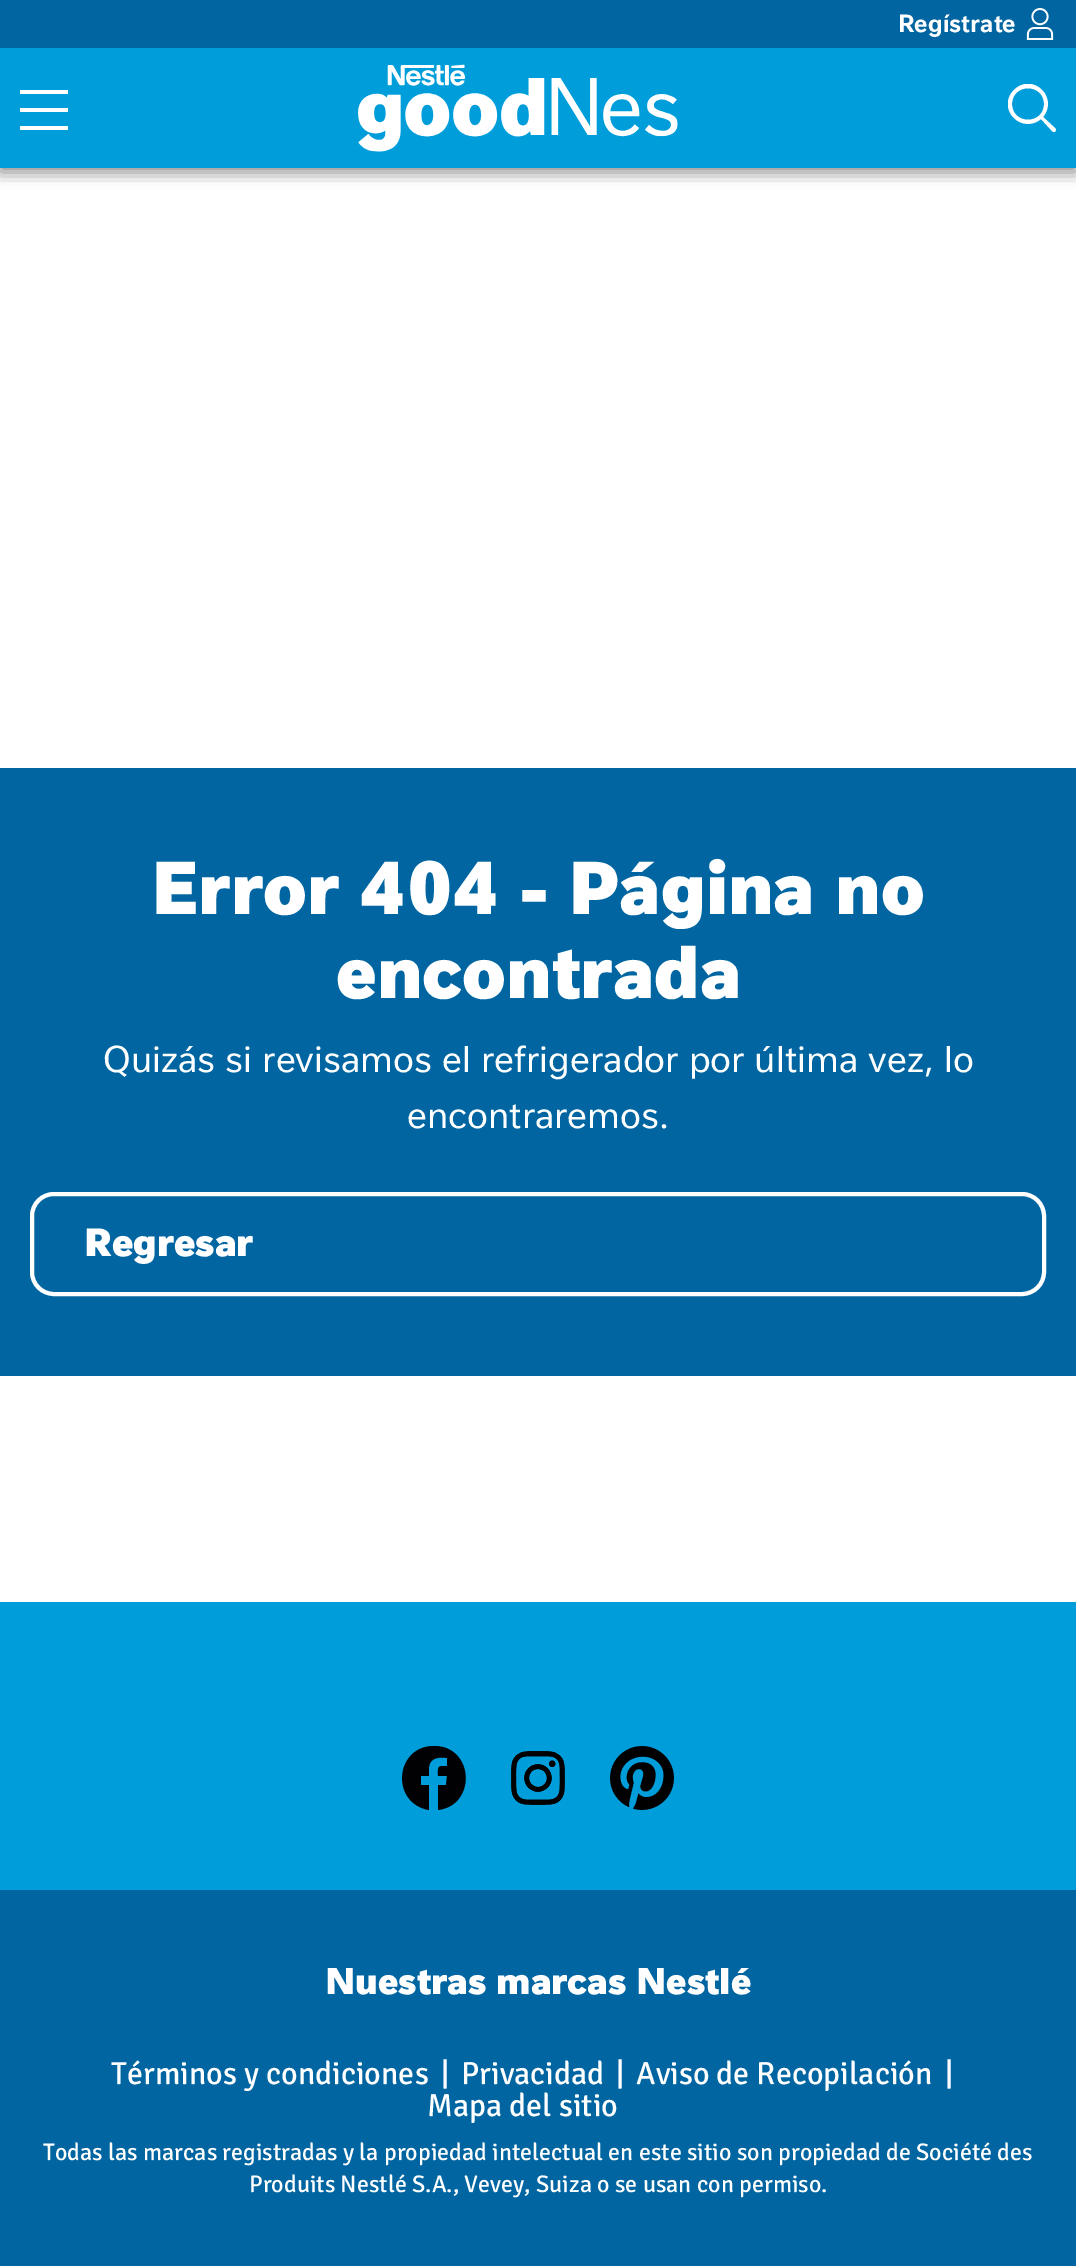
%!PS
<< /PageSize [1076 2266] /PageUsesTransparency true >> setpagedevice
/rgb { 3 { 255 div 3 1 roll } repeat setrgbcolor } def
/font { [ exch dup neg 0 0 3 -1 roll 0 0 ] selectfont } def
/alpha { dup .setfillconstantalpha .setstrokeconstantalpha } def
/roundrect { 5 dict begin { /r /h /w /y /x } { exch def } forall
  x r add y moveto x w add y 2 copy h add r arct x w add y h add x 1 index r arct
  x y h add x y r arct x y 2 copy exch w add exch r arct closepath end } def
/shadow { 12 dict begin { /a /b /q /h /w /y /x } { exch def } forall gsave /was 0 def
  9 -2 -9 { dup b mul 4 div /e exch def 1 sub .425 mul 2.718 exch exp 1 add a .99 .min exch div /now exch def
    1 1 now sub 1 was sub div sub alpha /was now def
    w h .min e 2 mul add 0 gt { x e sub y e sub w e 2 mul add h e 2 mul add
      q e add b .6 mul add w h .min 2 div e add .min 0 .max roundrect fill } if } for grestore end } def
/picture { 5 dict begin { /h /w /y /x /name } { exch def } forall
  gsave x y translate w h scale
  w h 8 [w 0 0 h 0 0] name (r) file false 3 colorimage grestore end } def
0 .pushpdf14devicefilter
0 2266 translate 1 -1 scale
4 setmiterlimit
255 255 255 rgb
0 0 1076 2266 rectfill
0 0 0 rgb
0 52 1076 120 0 8 0.25 shadow
[
  [0 48 1076 120 0 157 219]
  [20 90 48 4 255 255 255]
  [20 108 48 4 255 255 255]
  [20 126 48 4 255 255 255]
] { aload pop rgb rectfill } forall
(img/2.rgb) 358 64 320 88 picture
gsave
1008 84 48 48 rectclip
1055 128 moveto 1043 117 lineto 1059 97 1032 72 1014 90 curveto 996 108 1021 135 1041 119 curveto 1053 132 lineto 1055 133 1057 130 1055 128 curveto closepath 1012 104 moveto 1012 83 1044 83 1044 104 curveto 1044 125 1012 125 1012 104 curveto closepath fill
grestore
gsave
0 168 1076 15 rectclip
0 0 0 rgb
0 52 1076 120 0 8 0.25 shadow
grestore
0 101 161 rgb
0 0 1076 48 rectfill
(img/1.rgb) 1026 8 28 32 picture
0 768 1076 608 rectfill
255 255 255 rgb
4 setlinewidth
32 1194 1012 100 22 roundrect stroke
0 157 219 rgb
0 1602 1076 288 rectfill
1 0 2 rgb
434 1746 moveto 395 1746 390 1803 429 1810 curveto 429 1785 lineto 421 1785 lineto 421 1776 lineto 429 1776 lineto 429 1767 lineto 430 1757 440 1757 447 1758 curveto 447 1766 lineto 437 1766 438 1766 438 1776 curveto 447 1776 lineto 446 1785 lineto 438 1785 lineto 438 1810 lineto 477 1805 474 1746 434 1746 curveto closepath fill
(img/3.rgb) 511 1751 54 54 picture
(img/4.rgb) 610 1746 64 64 picture
0 101 161 rgb
0 1890 1076 376 rectfill
/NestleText-Bold 24 font
255 255 255 rgb
898 32 moveto (Regístrate) show
/NestleText-Black 72 font
151 914 moveto (Error 404 - Página no) show
336 998 moveto (encontrada) show
/NestleText-Regular 36 font
103 1072 moveto (Quizás si revisamos el refrigerador por última vez, lo) show
407 1128 moveto (encontraremos.) show
/NestleText-Black 38 font
84 1256 moveto (Regresar) show
/NestleText-Black 36 font
325 1994 moveto (Nuestras marcas Nestlé) show
/Signika-Regular 32 font
[
  [(Términos y condiciones) 111 2084]
  [(|) 441 2084]
  [(Privacidad) 461 2084]
  [(|) 616 2084]
  [(Aviso de Recopilación) 636 2084]
  [(|) 945 2084]
  [(Mapa del sitio) 427 2116]
] { aload pop moveto show } forall
/Signika-Regular 24 font
43 2160 moveto (Todas las marcas registradas y la propiedad intelectual en este sitio son propiedad de Société des) show
249 2192 moveto (Produits Nestlé S.A., Vevey, Suiza o se usan con permiso.) show
.poppdf14devicefilter showpage
